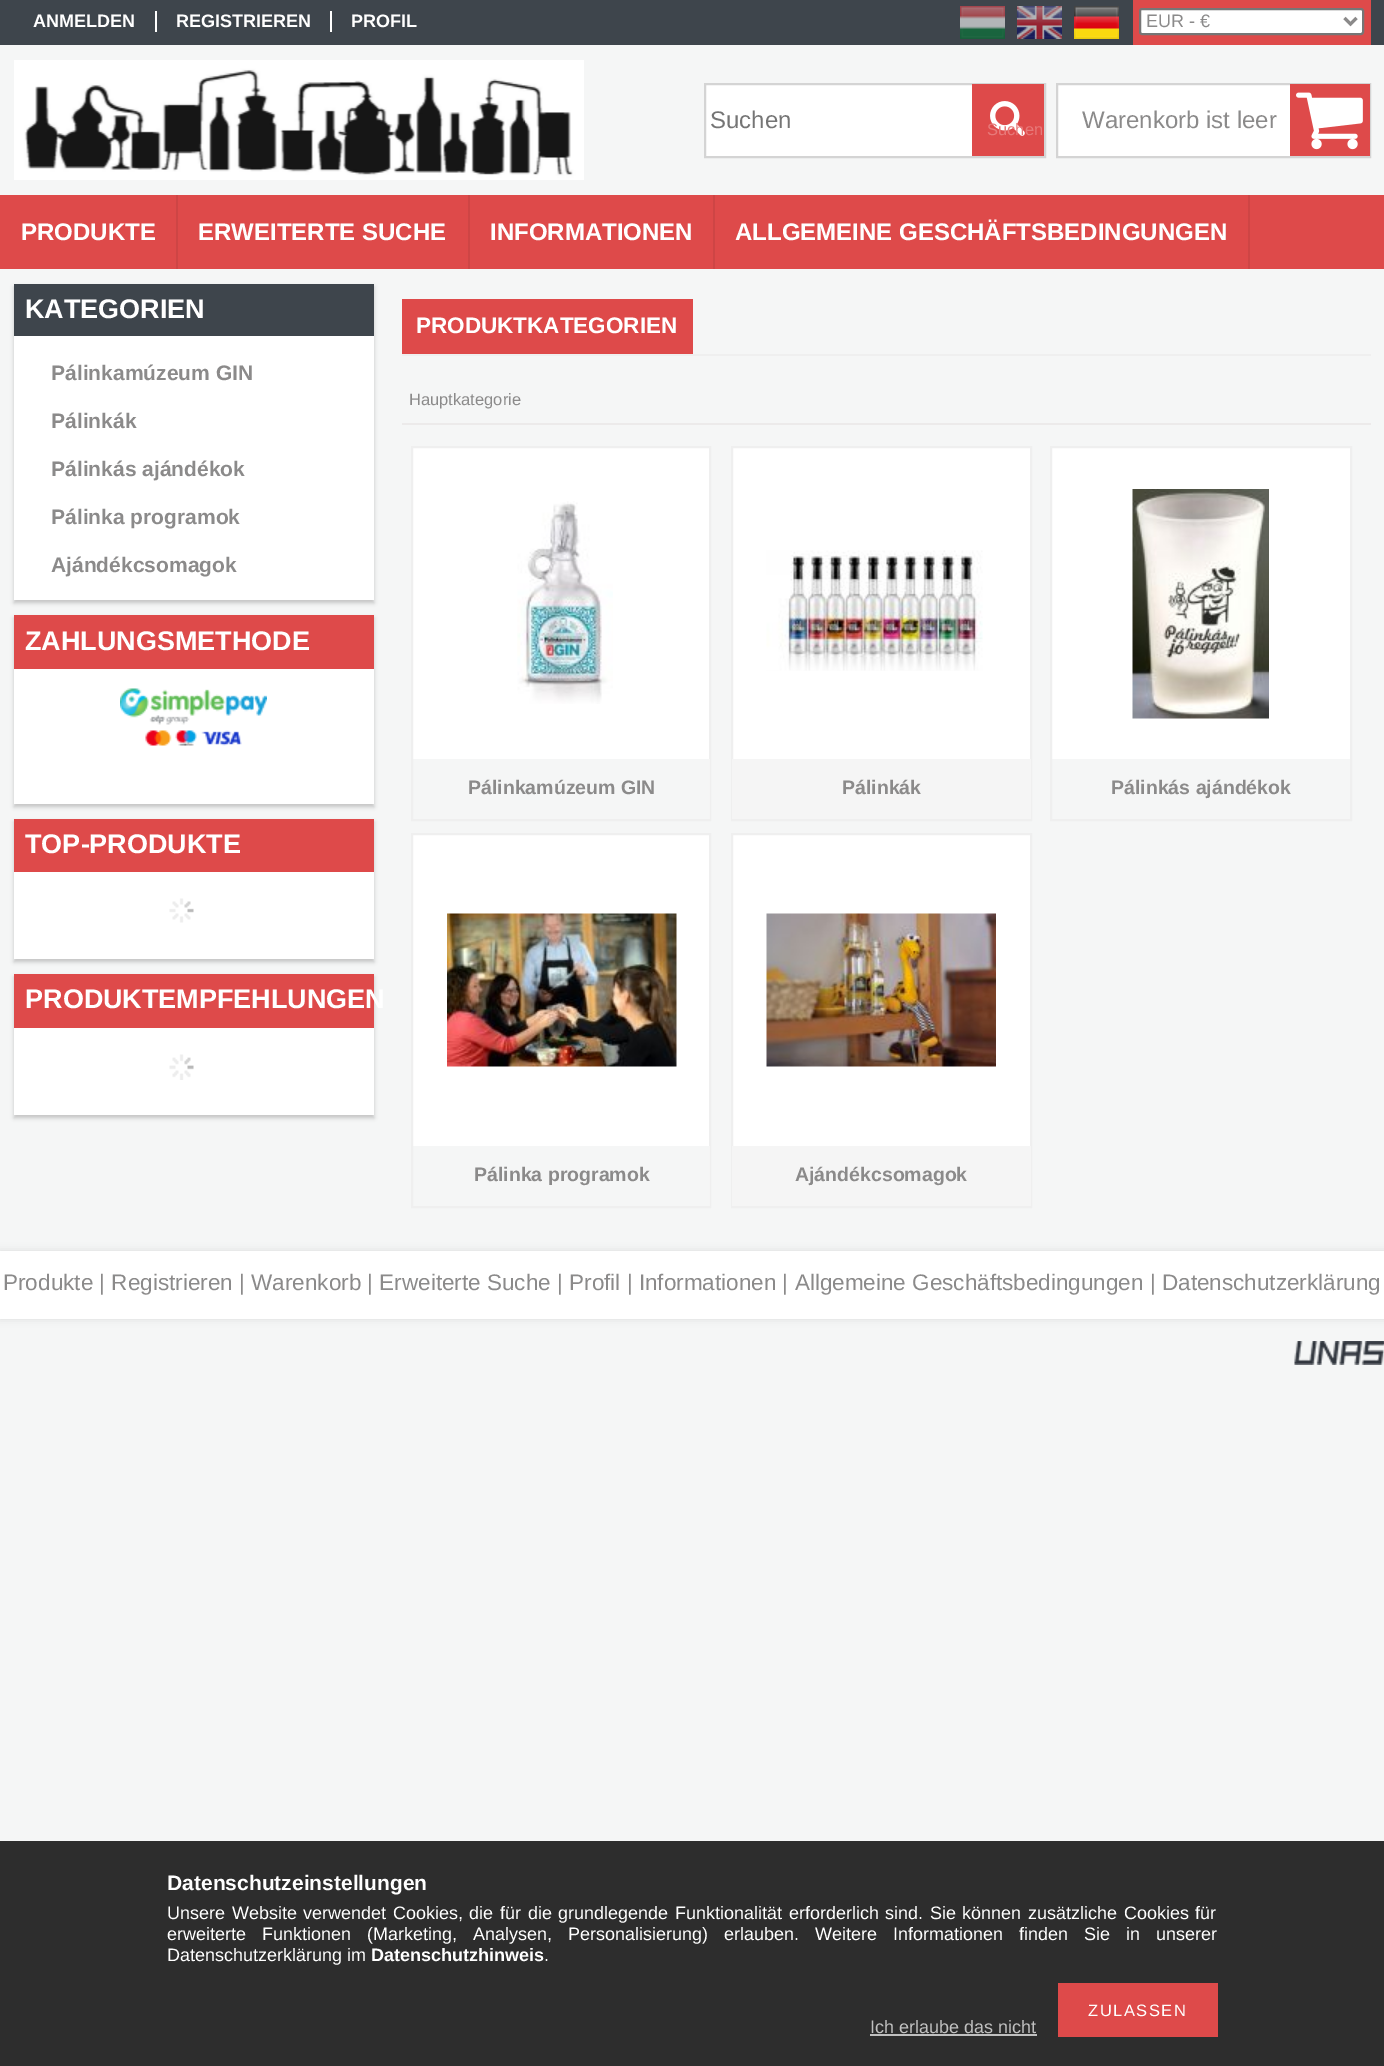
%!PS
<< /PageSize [1384 2066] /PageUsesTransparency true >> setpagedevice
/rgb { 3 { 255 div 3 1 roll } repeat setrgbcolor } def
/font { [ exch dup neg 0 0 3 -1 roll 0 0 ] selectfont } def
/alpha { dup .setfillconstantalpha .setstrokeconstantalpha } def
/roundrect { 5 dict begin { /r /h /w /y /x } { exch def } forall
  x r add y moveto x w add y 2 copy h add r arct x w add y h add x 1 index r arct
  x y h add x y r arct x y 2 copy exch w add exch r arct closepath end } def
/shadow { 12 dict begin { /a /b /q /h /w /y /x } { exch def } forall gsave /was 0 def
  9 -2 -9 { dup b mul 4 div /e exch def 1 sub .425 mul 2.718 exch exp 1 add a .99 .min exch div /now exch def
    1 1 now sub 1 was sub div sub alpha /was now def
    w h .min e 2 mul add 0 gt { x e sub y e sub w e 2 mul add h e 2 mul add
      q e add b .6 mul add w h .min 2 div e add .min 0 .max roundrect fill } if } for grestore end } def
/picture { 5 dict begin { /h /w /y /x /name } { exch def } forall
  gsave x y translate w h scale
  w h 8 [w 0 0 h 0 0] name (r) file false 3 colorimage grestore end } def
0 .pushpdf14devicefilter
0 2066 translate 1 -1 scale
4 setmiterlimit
245 246 246 rgb
0 0 1384 2066 rectfill
[
  [0 0 1384 45 62 69 76]
  [155 11 2 21 255 255 255]
  [330 11 2 21 255 255 255]
] { aload pop rgb rectfill } forall
(img/1.rgb) 960 6 45 33 picture
(img/2.rgb) 1017 6 45 33 picture
(img/3.rgb) 1074 6 45 33 picture
222 74 74 rgb
1133 0 238 45 rectfill
255 255 255 rgb
1140 9 223 25 2 roundrect gsave fill grestore
118 118 118 rgb
2 setlinewidth
stroke
139 138 138 rgb
3 setlinewidth
1344.5 18 moveto 1350.5 24 lineto 1356.5 18 lineto stroke
(img/4.rgb) 14 60 570 120 picture
255 255 255 rgb
706 85 266 71 rectfill
212 212 212 rgb
2 setlinewidth
705 84 340 73 rectstroke
222 74 74 rgb
972 84 72 72 rectfill
(img/5.rgb) 990 101 35 35 picture
255 255 255 rgb
1058 85 232 71 rectfill
212 212 212 rgb
1057 84 313 73 rectstroke
222 74 74 rgb
1290 84 80 72 rectfill
(img/6.rgb) 1296 92 67 58 picture
0 195 1384 74 rectfill
gsave
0 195 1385 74 rectclip
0 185 moveto 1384 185 lineto 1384 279 lineto 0 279 lineto closepath 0 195 moveto 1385 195 lineto 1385 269 lineto 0 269 lineto closepath eoclip newpath
0 0 0 rgb
6 195 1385 74 0 3 0.2 shadow
grestore
0.07 alpha
[
  [176 195 2 74 0 0 0]
  [468 195 2 74 0 0 0]
  [713 195 2 74 0 0 0]
  [1248 195 2 74 0 0 0]
] { aload pop rgb rectfill } forall
1 alpha
14 287 360 316 0 2 0.2 shadow
62 69 76 rgb
14 284 360 52 rectfill
255 255 255 rgb
14 336 360 264 rectfill
0 0 0 rgb
14 618 360 189 0 2 0.2 shadow
222 74 74 rgb
14 615 360 54 rectfill
255 255 255 rgb
14 669 360 135 rectfill
(img/7.rgb) 120 688 147 58 picture
0 0 0 rgb
14 822 360 140 0 2 0.2 shadow
222 74 74 rgb
14 819 360 53 rectfill
255 255 255 rgb
14 872 360 87 rectfill
(img/8.rgb) 169 898 25 25 picture
0 0 0 rgb
14 977 360 141 0 2 0.2 shadow
222 74 74 rgb
14 974 360 54 rectfill
255 255 255 rgb
14 1028 360 87 rectfill
(img/9.rgb) 169 1054 25 26 picture
[
  [402 354 969 2 239 239 239]
  [402 299 291 55 222 74 74]
  [402 423 969 2 236 234 234]
  [413 448 296 311 255 255 255]
] { aload pop rgb rectfill } forall
239 239 239 rgb
412 447 298 373 rectstroke
(img/10.rgb) 517 501 96 203 picture
245 245 245 rgb
709 759 1 60 rectfill
255 255 255 rgb
733 448 297 311 rectfill
239 239 239 rgb
732 447 299 373 rectstroke
(img/11.rgb) 766 550 217 121 picture
245 245 245 rgb
732 759 299 60 rectfill
255 255 255 rgb
1052 448 298 311 rectfill
239 239 239 rgb
1051 447 300 373 rectstroke
(img/12.rgb) 1132 489 137 230 picture
255 255 255 rgb
413 835 296 311 rectfill
239 239 239 rgb
412 834 298 373 rectstroke
(img/13.rgb) 447 913 230 154 picture
245 245 245 rgb
709 1146 1 60 rectfill
255 255 255 rgb
733 835 297 311 rectfill
239 239 239 rgb
732 834 299 373 rectstroke
(img/14.rgb) 766 913 230 154 picture
245 245 245 rgb
732 1146 299 60 rectfill
0 0 0 rgb
0 1251 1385 68 0 4 0.1 shadow
255 255 255 rgb
0 1251 1384 68 rectfill
(img/15.rgb) 1294 1341 90 24 picture
[
  [0 1841 1384 225 45 45 45]
  [1058 1983 160 54 222 74 74]
  [870 2034 167 2 192 192 192]
] { aload pop rgb rectfill } forall
/LiberationSans-Bold 18 font
255 255 255 rgb
[
  [(ANMELDEN) 33 27]
  [(REGISTRIEREN) 176 27]
  [(PROFIL) 351 27]
] { aload pop moveto show } forall
/LiberationSans-Regular 18 font
139 138 138 rgb
1146 27 moveto (EUR - €) show
/LiberationSans-Regular 24 font
117 117 117 rgb
710 128 moveto (Suchen) show
/LiberationSans-Regular 16.5 font
231 121 121 rgb
987 135 moveto (Suchen) show
/LiberationSans-Regular 24 font
139 138 138 rgb
1082 128 moveto (Warenkorb ist leer) show
/LiberationSans-Bold 24 font
255 255 255 rgb
[
  [(PRODUKTE) 21 240]
  [(ERWEITERTE SUCHE) 198 240]
  [(INFORMATIONEN) 490 240]
  [(ALLGEMEINE GESCHÄFTSBEDINGUNGEN) 735 240]
] { aload pop moveto show } forall
/LiberationSans-Bold 27 font
25 318 moveto (KATEGORIEN) show
/LiberationSans-Bold 21 font
139 138 138 rgb
[
  [(Pálinkamúzeum GIN) 51 380]
  [(Pálinkák) 51 428]
  [(Pálinkás ajándékok) 51 476]
  [(Pálinka programok) 51 524]
  [(Ajándékcsomagok) 51 572]
] { aload pop moveto show } forall
/LiberationSans-Bold 27 font
255 255 255 rgb
[
  [(ZAHLUNGSMETHODE) 25 650]
  [(TOP-PRODUKTE) 25 853]
  [(PRODUKTEMPFEHLUNGEN) 25 1008]
] { aload pop moveto show } forall
/LiberationSans-Bold 22.5 font
416 333 moveto (PRODUKTKATEGORIEN) show
/LiberationSans-Regular 16.5 font
139 138 138 rgb
409 405 moveto (Hauptkategorie) show
/LiberationSans-Bold 19.5 font
[
  [(Pálinkamúzeum GIN) 468 794]
  [(Pálinkák) 842 794]
  [(Pálinkás ajándékok) 1111 794]
  [(Pálinka programok) 474 1181]
  [(Ajándékcsomagok) 795 1181]
] { aload pop moveto show } forall
/LiberationSans-Regular 22.5 font
3 1290 moveto (Produkte | Registrieren | Warenkorb | Erweiterte Suche | Profil | Informationen | Allgemeine Geschäftsbedingungen | Datenschutzerklärung) show
/LiberationSans-Bold 21 font
255 255 255 rgb
167 1890 moveto (Datenschutzeinstellungen) show
/LiberationSans-Regular 18 font
167 1919 moveto 1.6 0 32 (Unsere Website verwendet Cookies, die für die grundlegende Funktionalität erforderlich sind. Sie können zusätzliche Cookies für) widthshow
167 1940 moveto 11 0 32 (erweiterte Funktionen \(Marketing, Analysen, Personalisierung\) erlauben. Weitere Informationen finden Sie in unserer) widthshow
167 1961 moveto (Datenschutzerklärung im) show
/LiberationSans-Bold 18 font
371 1961 moveto (Datenschutzhinweis) show
/LiberationSans-Regular 18 font
544 1961 moveto (.) show
/LiberationSans-Regular 16.5 font
1088 2016 moveto 1.5 0 (ZULASSEN) ashow
/LiberationSans-Regular 18 font
192 192 192 rgb
870 2033 moveto (Ich erlaube das nicht) show
.poppdf14devicefilter showpage
